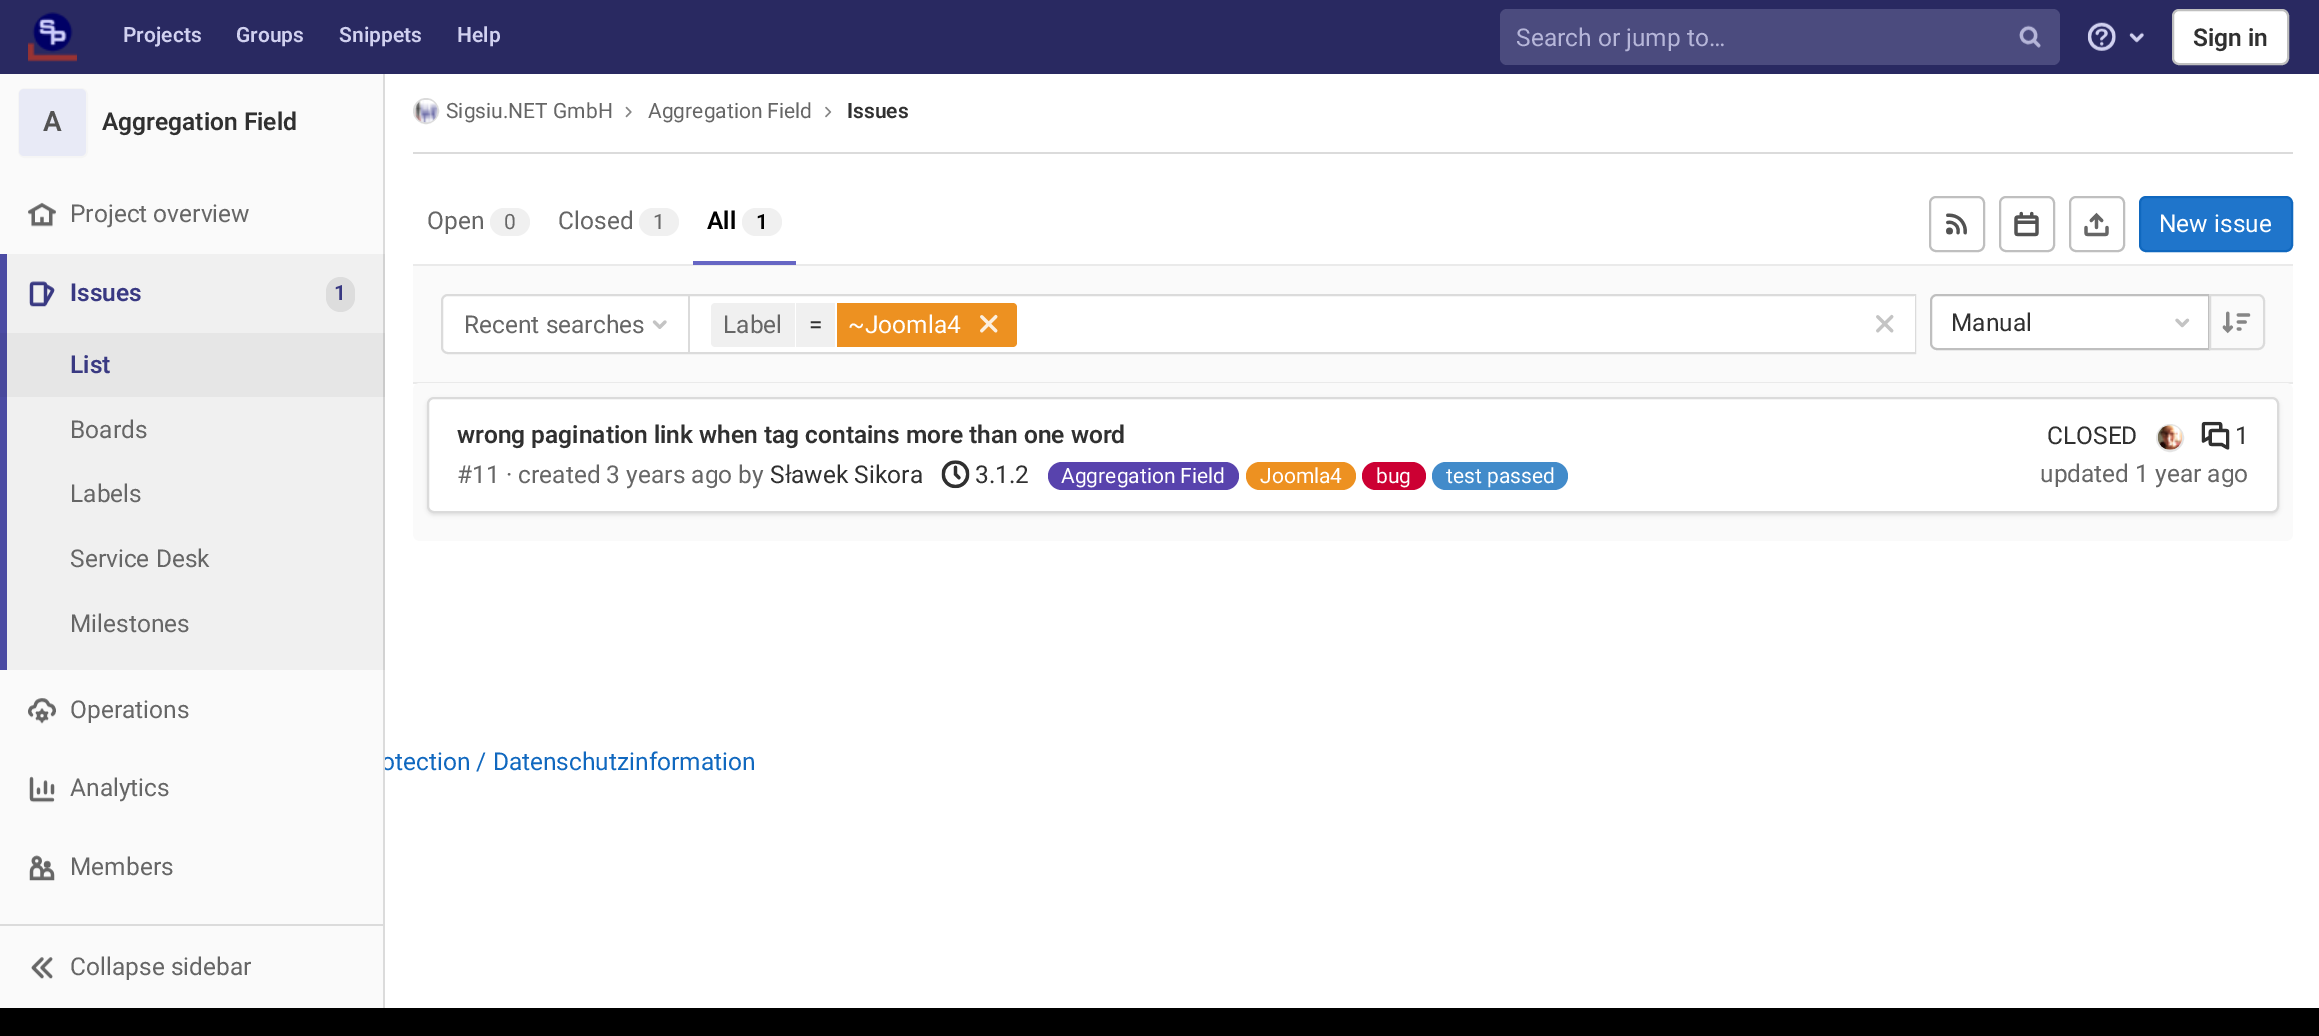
%!PS
<< /PageSize [2319 1036] /PageUsesTransparency true >> setpagedevice
/rgb { 3 { 255 div 3 1 roll } repeat setrgbcolor } def
/font { [ exch dup neg 0 0 3 -1 roll 0 0 ] selectfont } def
/alpha { dup .setfillconstantalpha .setstrokeconstantalpha } def
/circle { newpath 0 360 arc closepath } def
/roundrect { 5 dict begin { /r /h /w /y /x } { exch def } forall
  x r add y moveto x w add y 2 copy h add r arct x w add y h add x 1 index r arct
  x y h add x y r arct x y 2 copy exch w add exch r arct closepath end } def
/shadow { 12 dict begin { /a /b /q /h /w /y /x } { exch def } forall gsave /was 0 def
  9 -2 -9 { dup b mul 4 div /e exch def 1 sub .425 mul 2.718 exch exp 1 add a .99 .min exch div /now exch def
    1 1 now sub 1 was sub div sub alpha /was now def
    w h .min e 2 mul add 0 gt { x e sub y e sub w e 2 mul add h e 2 mul add
      q e add b .6 mul add w h .min 2 div e add .min 0 .max roundrect fill } if } for grestore end } def
/picture { 5 dict begin { /h /w /y /x /name } { exch def } forall
  gsave x y translate w h scale
  w h 8 [w 0 0 h 0 0] name (r) file false 3 colorimage grestore end } def
0 .pushpdf14devicefilter
0 1036 translate 1 -1 scale
4 setmiterlimit
255 255 255 rgb
0 0 2319 1036 rectfill
219 219 219 rgb
413 152 1880 2 rectfill
2 setlinewidth
426 111 12 circle stroke
(img/11.rgb) 415 100 23 23 picture
(img/12.rgb) 625 106 7 12 picture
(img/13.rgb) 825 106 7 12 picture
240 240 240 rgb
490 208 40 28 14 roundrect fill
639 208 40 28 14 roundrect fill
234 234 234 rgb
413 264 1880 2 rectfill
102 102 196 rgb
693 261 103 4 rectfill
240 240 240 rgb
742 208 40 28 14 roundrect fill
191 191 191 rgb
1930 197 54 54 6 roundrect stroke
(img/14.rgb) 1946 213 21 22 picture
2000 197 54 54 6 roundrect stroke
(img/15.rgb) 2014 211 25 26 picture
2070 197 54 54 6 roundrect stroke
(img/16.rgb) 2084 212 25 25 picture
31 117 203 rgb
2140 197 152 54 6 roundrect gsave fill grestore
16 104 191 rgb
stroke
250 250 250 rgb
413 266 1880 116 rectfill
234 234 234 rgb
413 382 1880 2 rectfill
255 255 255 rgb
448 295 moveto 1915 295 lineto 1915 353 lineto 448 353 lineto 444.5 353 442 350.5 442 347 curveto 442 301 lineto 442 297.5 444.5 295 448 295 curveto closepath gsave fill grestore
219 219 219 rgb
stroke
688 296 2 56 rectfill
(img/17.rgb) 652 320 15 9 picture
240 240 240 rgb
715 303 moveto 795 303 lineto 795 347 lineto 715 347 lineto 713 347 711 345 711 343 curveto 711 307 lineto 711 305 713 303 715 303 curveto closepath fill
796 303 39 44 rectfill
237 145 33 rgb
837 303 moveto 1013 303 lineto 1015 303 1017 305 1017 307 curveto 1017 343 lineto 1017 345 1015 347 1013 347 curveto 837 347 lineto closepath fill
(img/18.rgb) 980 314 18 19 picture
255 255 255 rgb
1914 296 1 56 rectfill
(img/19.rgb) 1876 314 18 19 picture
1937 295 moveto 2209 295 lineto 2209 349 lineto 1937 349 lineto 1933.5 349 1931 346.5 1931 343 curveto 1931 301 lineto 1931 297.5 1933.5 295 1937 295 curveto closepath gsave fill grestore
191 191 191 rgb
stroke
(img/20.rgb) 2175 318 15 10 picture
250 250 250 rgb
2210 295 moveto 2258 295 lineto 2261.5 295 2264 297.5 2264 301 curveto 2264 343 lineto 2264 346.5 2261.5 349 2258 349 curveto 2210 349 lineto closepath gsave fill grestore
219 219 219 rgb
stroke
(img/21.rgb) 2222 311 29 23 picture
250 250 250 rgb
413 383 1880 158 7 roundrect fill
0 0 0 rgb
427 399 1852 116 7 2 0.1 shadow
255 255 255 rgb
428 398 1850 114 6 roundrect gsave fill grestore
219 219 219 rgb
stroke
(img/22.rgb) 941 460 29 29 picture
88 67 173 rgb
1048 462 191 28 14 roundrect fill
237 145 33 rgb
1246 462 110 28 14 roundrect fill
204 0 51 rgb
1362 462 64 28 14 roundrect fill
66 139 202 rgb
1432 462 136 28 14 roundrect fill
228 228 228 rgb
2170 438 13 circle stroke
(img/23.rgb) 2157 425 25 25 picture
(img/24.rgb) 2201 421 29 29 picture
0 0 0 rgb
0 1008 2319 28 rectfill
/Roboto-Regular 21 font
102 102 102 rgb
446 118 moveto (Sigsiu.NET GmbH) show
648 118 moveto (Aggregation Field) show
/Roboto-SemiBold 21 font
48 48 48 rgb
847 118 moveto (Issues) show
/Roboto-Regular 24.5 font
102 102 102 rgb
427 229 moveto (Open) show
/Roboto-Regular 21 font
504 229 moveto (0) show
/Roboto-Regular 24.5 font
558 229 moveto (Closed) show
/Roboto-Regular 21 font
653 229 moveto (1) show
/Roboto-SemiBold 24.5 font
0 0 0 rgb
707 229 moveto (All) show
/Roboto-SemiBold 21 font
756 229 moveto (1) show
/Roboto-Regular 24.5 font
255 255 255 rgb
2159 232 moveto (New issue) show
102 102 102 rgb
464 333 moveto (Recent searches) show
723 333 moveto (Label) show
48 48 48 rgb
809 333 moveto (=) show
255 255 255 rgb
848 333 moveto (~Joomla4) show
48 48 48 rgb
1951 331 moveto (Manual) show
/Roboto-SemiBold 24.5 font
457 443 moveto (wrong pagination link when tag contains more than one word) show
/Roboto-Regular 24.5 font
102 102 102 rgb
457 483 moveto (#11 · created 3 years ago by) show
48 48 48 rgb
770 483 moveto (Sławek Sikora) show
975 483 moveto (3.1.2) show
/Roboto-Regular 21 font
255 255 255 rgb
[
  [(Aggregation Field) 1061 483]
  [(Joomla4) 1260 483]
  [(bug) 1376 483]
  [(test passed) 1446 483]
] { aload pop moveto show } forall
/Roboto-Regular 24.5 font
48 48 48 rgb
2047 444 moveto (CLOSED) show
2235 444 moveto (1) show
102 102 102 rgb
2040 482 moveto (updated 1 year ago) show
16 104 191 rgb
381 770 moveto (otection / Datenschutzinformation) show
219 219 219 rgb
383 70 2 938 rectfill
41 41 97 rgb
0 0 2319 74 rectfill
(img/4.rgb) 2129 32 15 11 picture
(img/3.rgb) 2087 22 29 29 picture
75 75 126 rgb
1500 9 560 56 7 roundrect fill
(img/2.rgb) 2019 25 22 23 picture
182 182 217 rgb
1516 46 moveto (Search or jump to…) show
(img/1.rgb) 28 12 49 50 picture
255 255 255 rgb
2173 10 115 54 6 roundrect gsave fill grestore
191 191 191 rgb
stroke
/Roboto-SemiBold 24.5 font
48 48 48 rgb
2193 46 moveto (Sign in) show
/Roboto-SemiBold 21 font
209 209 240 rgb
[
  [(Help) 457 42]
  [(Snippets) 339 42]
  [(Groups) 236 42]
  [(Projects) 123 42]
] { aload pop moveto show } forall
250 250 250 rgb
0 74 383 934 rectfill
/Roboto-Regular 24.5 font
102 102 102 rgb
70 975 moveto (Collapse sidebar) show
(img/10.rgb) 31 957 22 22 picture
219 219 219 rgb
0 924 383 2 rectfill
/Roboto-SemiBold 24.5 font
48 48 48 rgb
102 130 moveto (Aggregation Field) show
245 245 245 rgb
19 89 68 68 6 roundrect stroke
232 234 246 rgb
19 89 67 67 5 roundrect fill
/Roboto-SemiBold 28 font
82 82 82 rgb
43 131 moveto (A) show
(img/9.rgb) 29 855 26 26 picture
(img/8.rgb) 29 776 26 27 picture
(img/7.rgb) 28 698 28 26 picture
240 240 240 rgb
7 254 376 416 rectfill
(img/6.rgb) 29 281 26 26 picture
(img/5.rgb) 28 202 28 25 picture
/Roboto-Regular 24.5 font
102 102 102 rgb
[
  [(Members) 70 875]
  [(Analytics) 70 796]
  [(Operations) 70 718]
  [(Milestones) 70 632]
  [(Service Desk) 70 567]
  [(Labels) 70 502]
  [(Boards) 70 438]
] { aload pop moveto show } forall
230 230 230 rgb
7 333 376 64 rectfill
/Roboto-SemiBold 24.5 font
57 57 130 rgb
70 373 moveto (List) show
221 221 221 rgb
326 277 29 35 14.5 roundrect fill
/Roboto-SemiBold 21 font
57 57 130 rgb
334 300 moveto (1) show
/Roboto-SemiBold 24.5 font
70 301 moveto (Issues) show
/Roboto-Regular 24.5 font
102 102 102 rgb
70 222 moveto (Project overview) show
[
  [0 254 7 416 75 75 163]
  [0 333 7 64 72 72 156]
  [383 254 2 416 210 210 210]
  [383 333 2 64 202 202 202]
] { aload pop rgb rectfill } forall
.poppdf14devicefilter showpage
